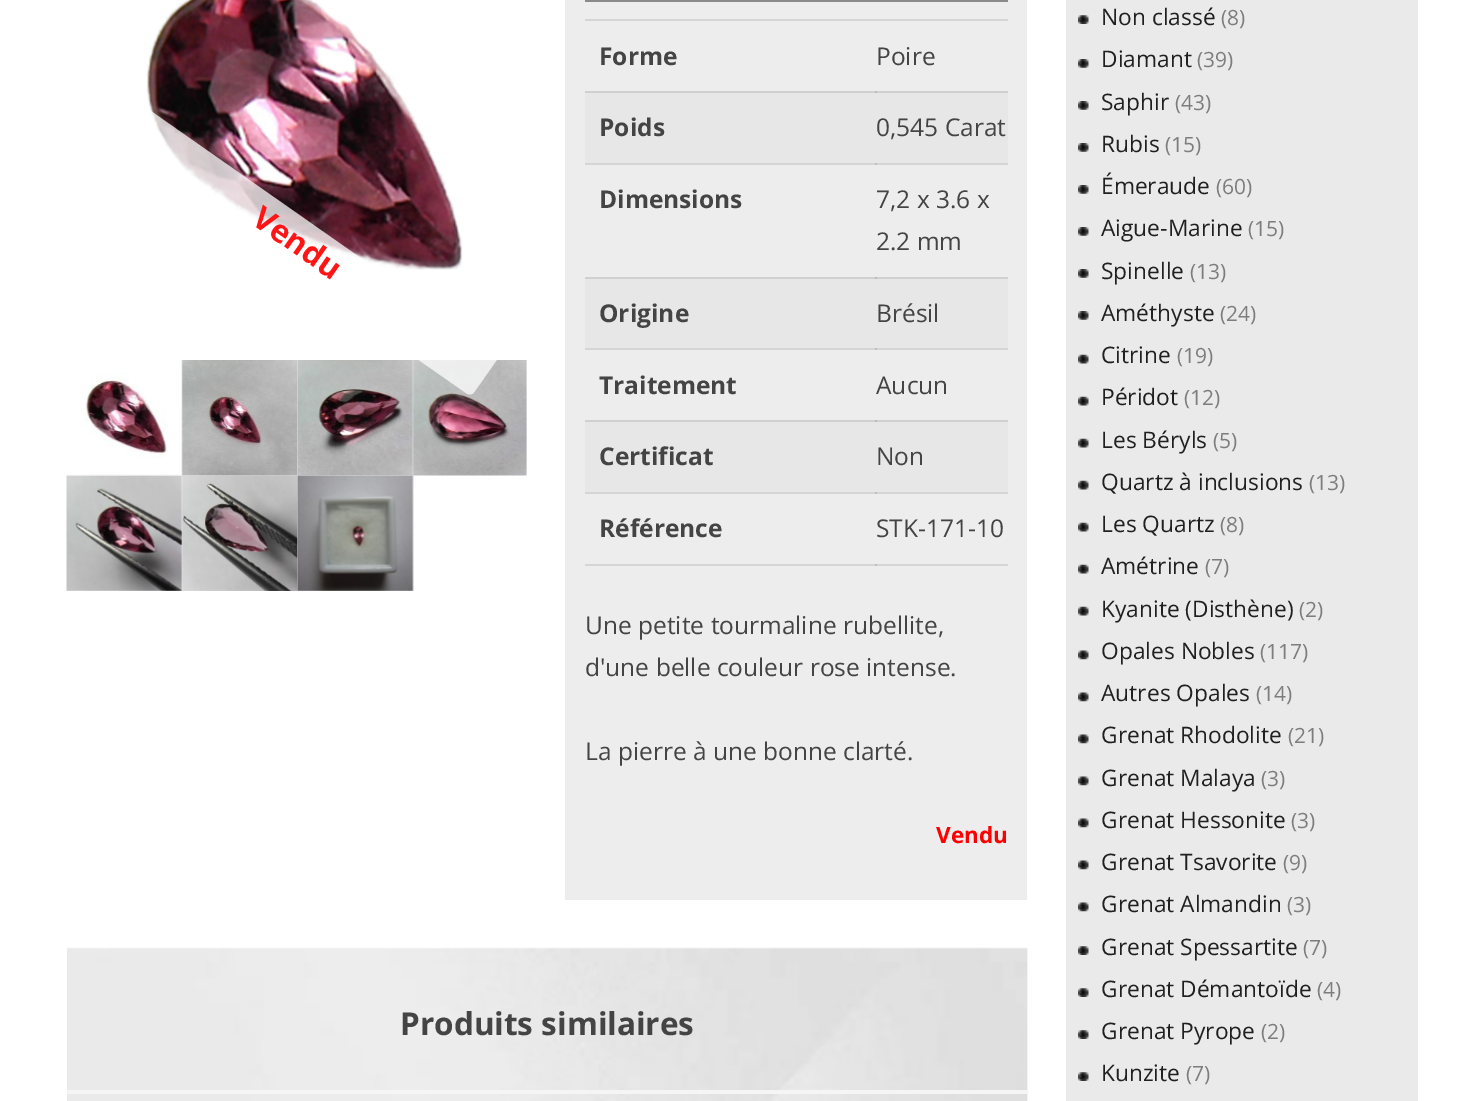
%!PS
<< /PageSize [1484 1101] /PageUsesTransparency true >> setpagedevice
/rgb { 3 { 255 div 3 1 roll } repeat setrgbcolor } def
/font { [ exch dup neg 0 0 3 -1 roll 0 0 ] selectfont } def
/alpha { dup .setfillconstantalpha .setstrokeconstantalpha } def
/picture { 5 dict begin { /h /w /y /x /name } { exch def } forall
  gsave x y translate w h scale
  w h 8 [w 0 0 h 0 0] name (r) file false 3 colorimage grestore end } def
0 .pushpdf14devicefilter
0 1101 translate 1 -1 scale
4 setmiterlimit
255 255 255 rgb
0 0 1484 1101 rectfill
(img/1.rgb) 146 0 317 270 picture
(img/2.rgb) 83 372 85 86 picture
(img/3.rgb) 181 360 118 116 picture
(img/4.rgb) 297 360 117 116 picture
(img/5.rgb) 412 360 115 116 picture
(img/6.rgb) 66 474 117 117 picture
(img/7.rgb) 181 475 117 116 picture
(img/8.rgb) 297 474 117 117 picture
[
  [565 0 462 900 237 237 237]
  [585 163 423 2 213 213 213]
  [585 348 423 2 213 213 213]
  [585 492 423 2 213 213 213]
  [585 564 423 2 213 213 213]
  [585 0 423 2 138 138 138]
  [585 19 423 2 213 213 213]
  [585 91 423 2 208 208 208]
  [875 91 2 2 187 187 187]
  [585 93 423 70 231 231 231]
  [875 163 2 2 192 192 192]
  [585 277 423 2 208 208 208]
  [875 277 2 2 187 187 187]
  [585 279 423 69 231 231 231]
  [875 348 2 2 192 192 192]
  [585 420 423 2 208 208 208]
  [875 420 2 2 187 187 187]
  [585 422 423 70 231 231 231]
  [875 492 2 2 192 192 192]
  [875 564 2 2 192 192 192]
] { aload pop rgb rectfill } forall
0.74 alpha
255 255 255 rgb
128 95 moveto 495 352 lineto 498 354 499 358 496 361 curveto 475 391 lineto 473 395 469 395 466 393 curveto 99 137 lineto 96 134 95 130 98 127 curveto 119 97 lineto 121 94 125 93 128 95 curveto closepath fill
1 alpha
(img/9.rgb) 67 947 961 154 picture
245 245 245 rgb
67 1090 960 4 rectfill
234 234 234 rgb
1066 0 352 1101 rectfill
(img/10.rgb) 1078 15 11 9 picture
(img/11.rgb) 1078 59 11 9 picture
(img/11.rgb) 1078 101 11 9 picture
(img/11.rgb) 1078 143 11 9 picture
(img/11.rgb) 1078 185 11 9 picture
(img/11.rgb) 1078 227 11 9 picture
(img/11.rgb) 1078 269 11 9 picture
(img/11.rgb) 1078 311 11 9 picture
(img/12.rgb) 1078 354 11 10 picture
(img/12.rgb) 1078 396 11 10 picture
(img/12.rgb) 1078 438 11 10 picture
(img/12.rgb) 1078 480 11 10 picture
(img/12.rgb) 1078 522 11 10 picture
(img/12.rgb) 1078 564 11 10 picture
(img/12.rgb) 1078 606 11 10 picture
(img/13.rgb) 1078 650 11 10 picture
(img/13.rgb) 1078 692 11 10 picture
(img/13.rgb) 1078 734 11 10 picture
(img/13.rgb) 1078 776 11 10 picture
(img/13.rgb) 1078 818 11 10 picture
(img/13.rgb) 1078 860 11 10 picture
(img/13.rgb) 1078 902 11 10 picture
(img/10.rgb) 1078 946 11 9 picture
(img/10.rgb) 1078 988 11 9 picture
(img/10.rgb) 1078 1030 11 9 picture
(img/10.rgb) 1078 1072 11 9 picture
/OpenSans-Bold 24.5 font
68 68 68 rgb
599 65 moveto (Forme) show
/OpenSans-Regular 24.5 font
876 65 moveto (Poire) show
/OpenSans-Bold 24.5 font
599 136 moveto (Poids) show
/OpenSans-Regular 24.5 font
876 136 moveto (0,545 Carat) show
/OpenSans-Bold 24.5 font
599 208 moveto (Dimensions) show
/OpenSans-Regular 24.5 font
876 208 moveto (7,2 x 3.6 x) show
876 250 moveto (2.2 mm) show
/OpenSans-Bold 24.5 font
599 322 moveto (Origine) show
/OpenSans-Regular 24.5 font
876 322 moveto (Brésil) show
/OpenSans-Bold 24.5 font
599 394 moveto (Traitement) show
/OpenSans-Regular 24.5 font
876 394 moveto (Aucun) show
/OpenSans-Bold 24.5 font
599 465 moveto (Certificat) show
/OpenSans-Regular 24.5 font
876 465 moveto (Non) show
/OpenSans-Bold 24.5 font
599 537 moveto (Référence) show
/OpenSans-Regular 24.5 font
[
  [(STK-171-10) 876 537]
  [(Une petite tourmaline rubellite,) 585 634]
  [(d'une belle couleur rose intense.) 585 676]
  [(La pierre à une bonne clarté.) 585 760]
] { aload pop moveto show } forall
/OpenSans-Bold 22.5 font
255 0 0 rgb
936 843 moveto (Vendu) show
/OpenSans-Bold 31.5 font
255 21 21 rgb
gsave 250 223 translate 35 rotate 0 0 moveto (Vendu) show grestore
68 68 68 rgb
400 1035 moveto (Produits similaires) show
/OpenSans-Regular 22.75 font
32 32 32 rgb
1101 25 moveto (Non classé) show
/OpenSans-Regular 21 font
125 125 125 rgb
1221 25 moveto (\(8\)) show
/OpenSans-Regular 22.75 font
32 32 32 rgb
1101 67 moveto (Diamant) show
/OpenSans-Regular 21 font
125 125 125 rgb
1197 67 moveto (\(39\)) show
/OpenSans-Regular 22.75 font
32 32 32 rgb
1101 110 moveto (Saphir) show
/OpenSans-Regular 21 font
125 125 125 rgb
1175 110 moveto (\(43\)) show
/OpenSans-Regular 22.75 font
32 32 32 rgb
1101 152 moveto (Rubis) show
/OpenSans-Regular 21 font
125 125 125 rgb
1165 152 moveto (\(15\)) show
/OpenSans-Regular 22.75 font
32 32 32 rgb
1101 194 moveto (Émeraude) show
/OpenSans-Regular 21 font
125 125 125 rgb
1216 194 moveto (\(60\)) show
/OpenSans-Regular 22.75 font
32 32 32 rgb
1101 236 moveto (Aigue-Marine) show
/OpenSans-Regular 21 font
125 125 125 rgb
1248 236 moveto (\(15\)) show
/OpenSans-Regular 22.75 font
32 32 32 rgb
1101 279 moveto (Spinelle) show
/OpenSans-Regular 21 font
125 125 125 rgb
1190 279 moveto (\(13\)) show
/OpenSans-Regular 22.75 font
32 32 32 rgb
1101 321 moveto (Améthyste) show
/OpenSans-Regular 21 font
125 125 125 rgb
1220 321 moveto (\(24\)) show
/OpenSans-Regular 22.75 font
32 32 32 rgb
1101 363 moveto (Citrine) show
/OpenSans-Regular 21 font
125 125 125 rgb
1177 363 moveto (\(19\)) show
/OpenSans-Regular 22.75 font
32 32 32 rgb
1101 405 moveto (Péridot) show
/OpenSans-Regular 21 font
125 125 125 rgb
1184 405 moveto (\(12\)) show
/OpenSans-Regular 22.75 font
32 32 32 rgb
1101 448 moveto (Les Béryls) show
/OpenSans-Regular 21 font
125 125 125 rgb
1213 448 moveto (\(5\)) show
/OpenSans-Regular 22.75 font
32 32 32 rgb
1101 490 moveto (Quartz à inclusions) show
/OpenSans-Regular 21 font
125 125 125 rgb
1309 490 moveto (\(13\)) show
/OpenSans-Regular 22.75 font
32 32 32 rgb
1101 532 moveto (Les Quartz) show
/OpenSans-Regular 21 font
125 125 125 rgb
1220 532 moveto (\(8\)) show
/OpenSans-Regular 22.75 font
32 32 32 rgb
1101 574 moveto (Amétrine) show
/OpenSans-Regular 21 font
125 125 125 rgb
1205 574 moveto (\(7\)) show
/OpenSans-Regular 22.75 font
32 32 32 rgb
1101 617 moveto (Kyanite \(Disthène\)) show
/OpenSans-Regular 21 font
125 125 125 rgb
1299 617 moveto (\(2\)) show
/OpenSans-Regular 22.75 font
32 32 32 rgb
1101 659 moveto (Opales Nobles) show
/OpenSans-Regular 21 font
125 125 125 rgb
1260 659 moveto (\(117\)) show
/OpenSans-Regular 22.75 font
32 32 32 rgb
1101 701 moveto (Autres Opales) show
/OpenSans-Regular 21 font
125 125 125 rgb
1256 701 moveto (\(14\)) show
/OpenSans-Regular 22.75 font
32 32 32 rgb
1101 743 moveto (Grenat Rhodolite) show
/OpenSans-Regular 21 font
125 125 125 rgb
1288 743 moveto (\(21\)) show
/OpenSans-Regular 22.75 font
32 32 32 rgb
1101 786 moveto (Grenat Malaya) show
/OpenSans-Regular 21 font
125 125 125 rgb
1261 786 moveto (\(3\)) show
/OpenSans-Regular 22.75 font
32 32 32 rgb
1101 828 moveto (Grenat Hessonite) show
/OpenSans-Regular 21 font
125 125 125 rgb
1291 828 moveto (\(3\)) show
/OpenSans-Regular 22.75 font
32 32 32 rgb
1101 870 moveto (Grenat Tsavorite) show
/OpenSans-Regular 21 font
125 125 125 rgb
1283 870 moveto (\(9\)) show
/OpenSans-Regular 22.75 font
32 32 32 rgb
1101 912 moveto (Grenat Almandin) show
/OpenSans-Regular 21 font
125 125 125 rgb
1287 912 moveto (\(3\)) show
/OpenSans-Regular 22.75 font
32 32 32 rgb
1101 955 moveto (Grenat Spessartite) show
/OpenSans-Regular 21 font
125 125 125 rgb
1303 955 moveto (\(7\)) show
/OpenSans-Regular 22.75 font
32 32 32 rgb
1101 997 moveto (Grenat Démantoïde) show
/OpenSans-Regular 21 font
125 125 125 rgb
1317 997 moveto (\(4\)) show
/OpenSans-Regular 22.75 font
32 32 32 rgb
1101 1039 moveto (Grenat Pyrope) show
/OpenSans-Regular 21 font
125 125 125 rgb
1261 1039 moveto (\(2\)) show
/OpenSans-Regular 22.75 font
32 32 32 rgb
1101 1081 moveto (Kunzite) show
/OpenSans-Regular 21 font
125 125 125 rgb
1186 1081 moveto (\(7\)) show
.poppdf14devicefilter showpage
